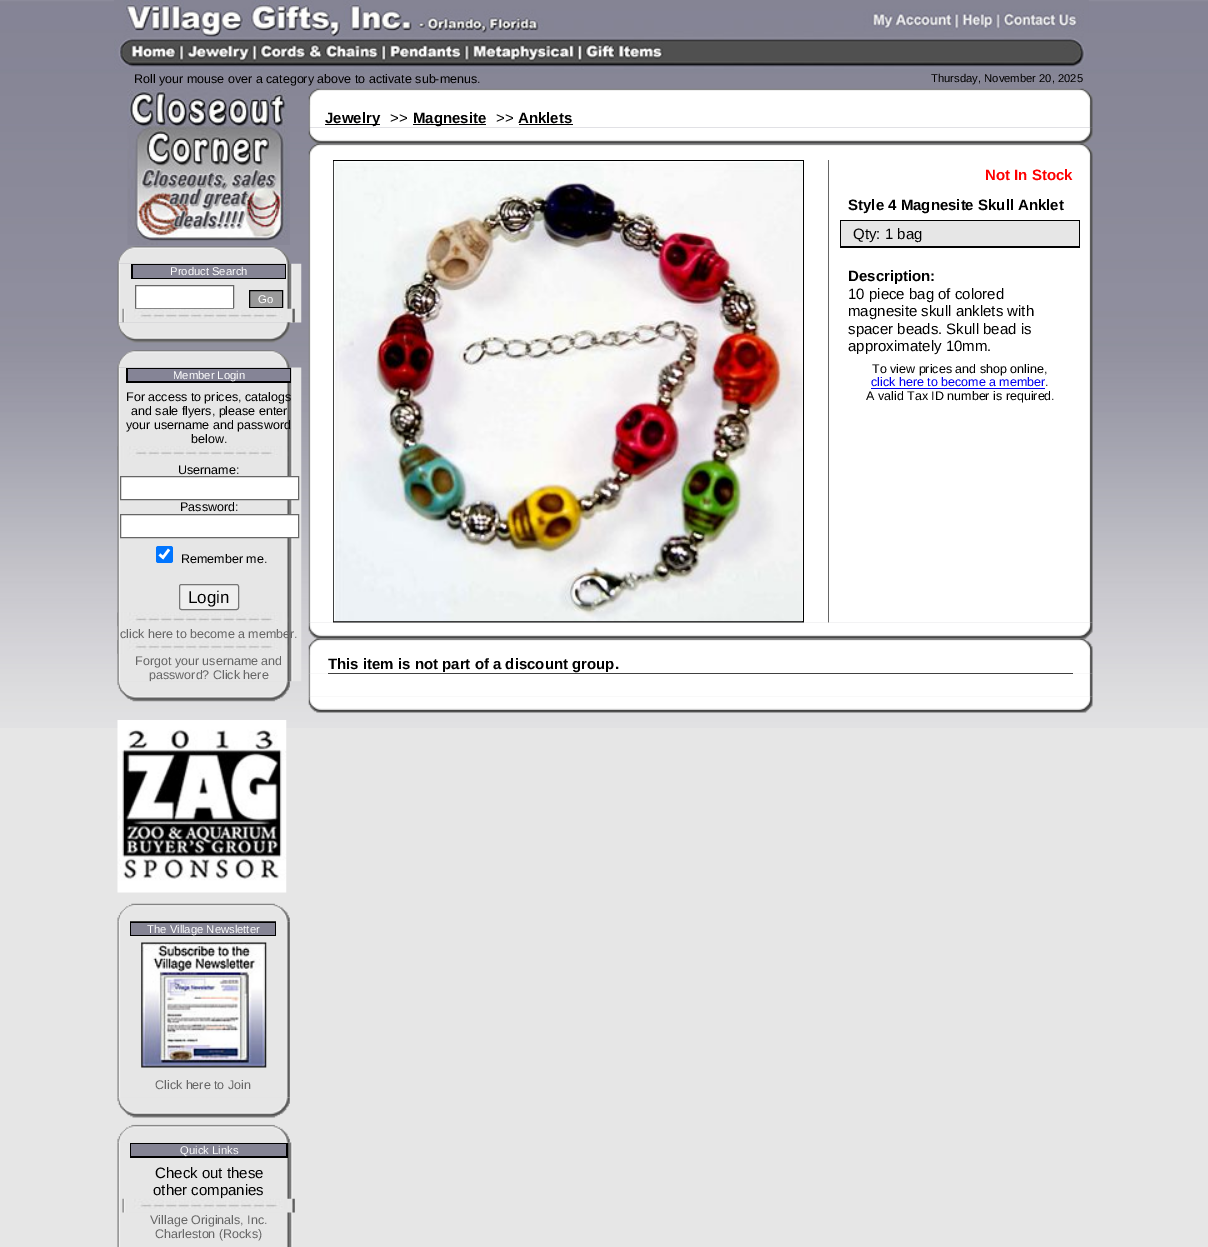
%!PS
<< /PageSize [1208 1247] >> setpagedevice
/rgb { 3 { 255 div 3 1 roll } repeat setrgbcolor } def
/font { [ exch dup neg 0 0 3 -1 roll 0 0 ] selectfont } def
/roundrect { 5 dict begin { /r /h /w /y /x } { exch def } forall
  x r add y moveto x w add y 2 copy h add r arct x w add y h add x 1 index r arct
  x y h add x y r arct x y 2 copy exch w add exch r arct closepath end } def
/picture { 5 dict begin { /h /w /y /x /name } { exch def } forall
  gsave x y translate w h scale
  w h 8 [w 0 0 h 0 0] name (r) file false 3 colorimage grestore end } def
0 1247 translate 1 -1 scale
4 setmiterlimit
230 230 230 rgb
0 0 1208 1247 rectfill
(img/1.rgb) 0 0 1208 728 picture
(img/2.rgb) 114 0 975 70 picture
(img/3.rgb) 127 89 163 156 picture
(img/5.rgb) 117 263 185 60 picture
(img/4.rgb) 117 246 173 18 picture
0 0 0 rgb
131 264 155 15 rectfill
133 132 148 rgb
133 265 152 13 rectfill
255 255 255 rgb
135.5 285.5 moveto 233.5 285.5 lineto 233.5 308.5 lineto 135.5 308.5 lineto closepath gsave fill grestore
102 102 102 rgb
stroke
153 153 153 rgb
249.5 290.5 moveto 282.5 290.5 lineto 282.5 307.5 lineto 249.5 307.5 lineto closepath gsave fill grestore
0 0 0 rgb
stroke
(img/6.rgb) 122 308 173 15 picture
(img/7.rgb) 117 322 173 21 picture
(img/9.rgb) 117 367 185 315 picture
(img/8.rgb) 117 350 173 18 picture
126 368 165 15 rectfill
133 132 150 rgb
128 369 162 12 rectfill
(img/10.rgb) 117 446 172 14 picture
255 255 255 rgb
120.5 476.5 moveto 298.5 476.5 lineto 298.5 499.5 lineto 120.5 499.5 lineto closepath gsave fill grestore
102 102 102 rgb
stroke
255 255 255 rgb
120.5 514.5 moveto 298.5 514.5 lineto 298.5 537.5 lineto 120.5 537.5 lineto closepath gsave fill grestore
102 102 102 rgb
stroke
0 117 255 rgb
156 546 17 17 2.5 roundrect fill
255 255 255 rgb
2.6 setlinewidth
159.5 554.5 moveto 163 557.5 lineto 169 549.5 lineto stroke
239 239 239 rgb
179.5 584.5 59 25 2 roundrect gsave fill grestore
118 118 118 rgb
1 setlinewidth
stroke
(img/11.rgb) 117 612 172 15 picture
(img/12.rgb) 117 640 172 14 picture
(img/14.rgb) 117 720 170 173 picture
(img/16.rgb) 117 921 173 177 picture
0 0 0 rgb
130 921 146 15 rectfill
(img/15.rgb) 117 903 173 19 picture
133 132 148 rgb
131 923 144 12 rectfill
(img/17.rgb) 141 942 126 126 picture
(img/18.rgb) 117 1097 173 21 picture
(img/20.rgb) 117 1142 176 105 picture
(img/19.rgb) 117 1124 173 19 picture
0 0 0 rgb
130 1143 158 15 rectfill
133 132 148 rgb
131 1144 155 12 rectfill
(img/22.rgb) 308 88 785 17 picture
(img/23.rgb) 308 105 785 23 picture
[
  [325 124 55 1 0 0 0]
  [413 124 73 1 0 0 0]
  [519 124 54 1 0 0 0]
] { aload pop rgb rectfill } forall
(img/24.rgb) 308 127 785 17 picture
(img/25.rgb) 308 143 785 17 picture
(img/26.rgb) 308 160 785 463 picture
333 160 471 463 rectfill
255 255 255 rgb
334 161 469 460 rectfill
(img/27.rgb) 333 161 470 461 picture
[
  [828 160 1 463 102 102 102]
  [840 220 240 28 0 0 0]
  [841 221 238 25 230 230 230]
  [871 388 174 1 0 0 238]
] { aload pop rgb rectfill } forall
(img/28.rgb) 308 622 785 17 picture
(img/29.rgb) 308 638 785 17 picture
(img/30.rgb) 308 655 785 19 picture
0 0 0 rgb
328 673 745 1 rectfill
(img/31.rgb) 308 673 785 24 picture
(img/32.rgb) 308 696 785 17 picture
/LiberationSans-Regular 12.5 font
134 83 moveto (Roll your mouse over a category above to activate sub-menus.) show
/LiberationSans-Regular 11.25 font
931 82 moveto (Thursday, November 20, 2025) show
255 255 255 rgb
[
  [(Product Search) 170 275]
  [(Go) 258 303]
  [(Member Login) 173 379]
] { aload pop moveto show } forall
/LiberationSans-Regular 12.5 font
0 0 0 rgb
[
  [(For access to prices, catalogs) 126 401]
  [(and sale flyers, please enter) 131 415]
  [(your username and password) 126 429]
  [(below.) 191 443]
  [(Username:) 178 474]
  [(Password:) 180 511]
  [(Remember me.) 181 563]
] { aload pop moveto show } forall
/LiberationSans-Regular 17 font
188 603 moveto (Login) show
/LiberationSans-Regular 12.5 font
102 102 102 rgb
[
  [(click here to become a member.) 120 638]
  [(Forgot your username and) 135 665]
  [(password? Click here) 149 679]
] { aload pop moveto show } forall
(img/13.rgb) 117 681 173 21 picture
/LiberationSans-Regular 11.25 font
255 255 255 rgb
147 933 moveto (The Village Newsletter) show
/LiberationSans-Regular 12.5 font
102 102 102 rgb
155 1089 moveto (Click here to Join) show
/LiberationSans-Regular 11.25 font
255 255 255 rgb
180 1154 moveto (Quick Links) show
/LiberationSans-Regular 15 font
0 0 0 rgb
155 1178 moveto (Check out these) show
153 1195 moveto (other companies) show
(img/21.rgb) 122 1198 173 15 picture
/LiberationSans-Regular 12.5 font
102 102 102 rgb
150 1224 moveto (Village Originals, Inc.) show
155 1238 moveto (Charleston \(Rocks\)) show
/LiberationSans-Bold 15 font
0 0 0 rgb
325 123 moveto (Jewelry) show
/LiberationSans-Regular 15 font
390 123 moveto (>>) show
/LiberationSans-Bold 15 font
413 123 moveto (Magnesite) show
/LiberationSans-Regular 15 font
496 123 moveto (>>) show
/LiberationSans-Bold 15 font
518 123 moveto (Anklets) show
255 0 0 rgb
985 180 moveto (Not In Stock) show
0 0 0 rgb
848 210 moveto (Style 4 Magnesite Skull Anklet) show
/LiberationSans-Regular 15 font
853 239 moveto (Qty: 1 bag) show
/LiberationSans-Bold 15 font
848 281 moveto (Description:) show
/LiberationSans-Regular 15 font
[
  [(10 piece bag of colored) 848 299]
  [(magnesite skull anklets with) 848 316]
  [(spacer beads. Skull bead is) 848 334]
  [(approximately 10mm.) 848 351]
] { aload pop moveto show } forall
/LiberationSans-Regular 12.5 font
872 373 moveto (To view prices and shop online,) show
0 0 238 rgb
871 386 moveto (click here to become a member) show
0 0 0 rgb
1045 386 moveto (.) show
866 400 moveto (A valid Tax ID number is required.) show
/LiberationSans-Bold 15 font
328 669 moveto (This item is not part of a discount group.) show
showpage
